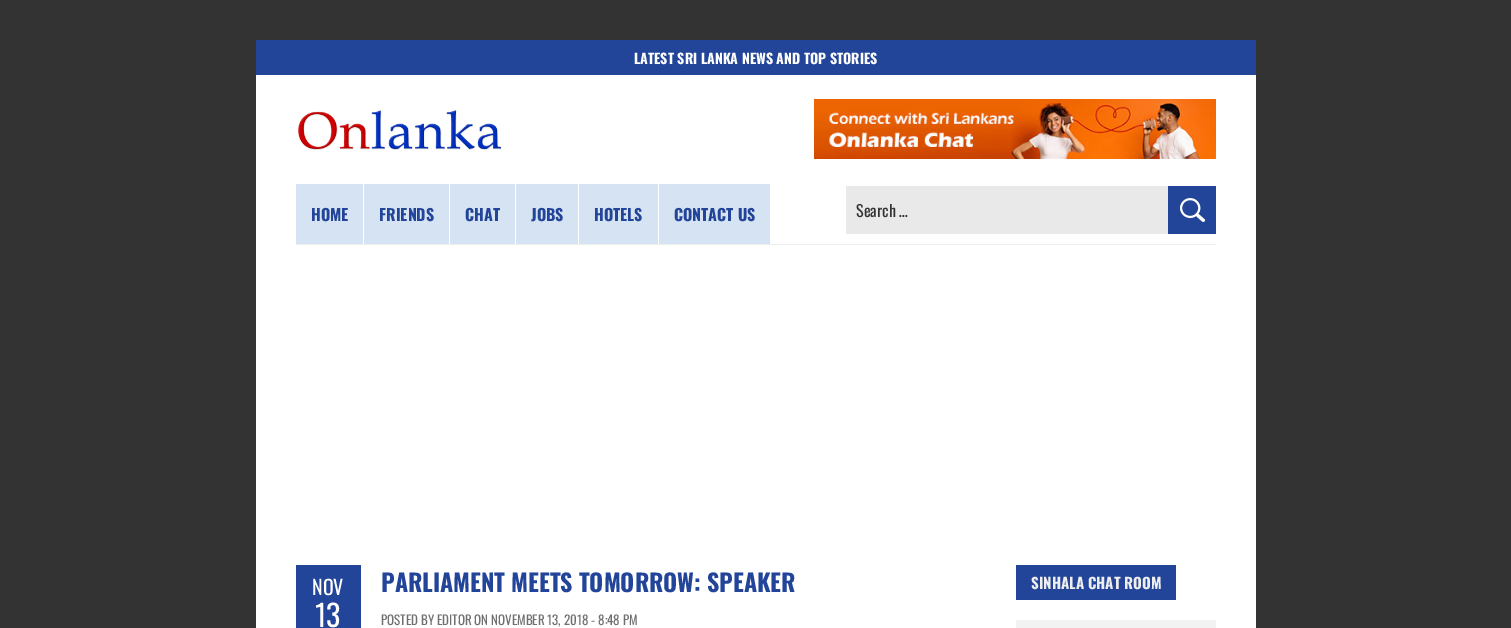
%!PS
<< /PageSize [1511 628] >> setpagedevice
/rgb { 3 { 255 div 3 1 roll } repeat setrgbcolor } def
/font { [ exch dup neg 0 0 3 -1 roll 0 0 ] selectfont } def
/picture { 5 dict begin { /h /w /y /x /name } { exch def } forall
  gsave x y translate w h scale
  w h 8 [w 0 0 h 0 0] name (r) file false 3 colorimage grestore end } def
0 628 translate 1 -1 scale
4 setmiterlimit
51 51 51 rgb
0 0 1511 628 rectfill
255 255 255 rgb
256 75 1000 553 rectfill
34 68 153 rgb
256 40 1000 35 rectfill
(img/1.rgb) 298 110 204 40 picture
(img/2.rgb) 814 99 402 60 picture
[
  [296 244 920 1 238 238 238]
  [296 184 67 60 213 227 242]
  [364 184 85 60 213 227 242]
  [450 184 65 60 213 227 242]
  [516 184 62 60 213 227 242]
  [579 184 79 60 213 227 242]
  [659 184 111 60 213 227 242]
  [846 186 322 48 233 233 233]
  [1168 186 48 48 34 68 153]
] { aload pop rgb rectfill } forall
(img/3.rgb) 1180 198 25 24 picture
[
  [296 565 65 63 34 68 153]
  [1016 565 160 35 34 68 153]
  [1016 620 200 8 242 242 242]
] { aload pop rgb rectfill } forall
/Oswald-Bold 14 font
255 255 255 rgb
634 64 moveto (LATEST SRI LANKA NEWS AND TOP STORIES) show
/Oswald-Bold 16 font
34 68 153 rgb
[
  [(HOME) 311 221]
  [(FRIENDS) 379 221]
  [(CHAT) 465 221]
  [(JOBS) 531 221]
  [(HOTELS) 594 221]
  [(CONTACT US) 674 221]
] { aload pop moveto show } forall
/Oswald-Regular 16 font
51 51 51 rgb
856 217 moveto (Search …) show
/Oswald-Regular 20 font
255 255 255 rgb
312 595 moveto (NOV) show
/Oswald-Regular 30 font
315 627 moveto (13) show
/Oswald-Bold 24 font
34 68 153 rgb
381 592 moveto (PARLIAMENT MEETS TOMORROW: SPEAKER) show
/Oswald-Regular 13 font
112 112 112 rgb
381 625 moveto (POSTED BY EDITOR ON NOVEMBER 13, 2018 - 8:48 PM) show
/Oswald-Bold 15 font
238 238 238 rgb
1031 589 moveto (SINHALA CHAT ROOM) show
showpage
